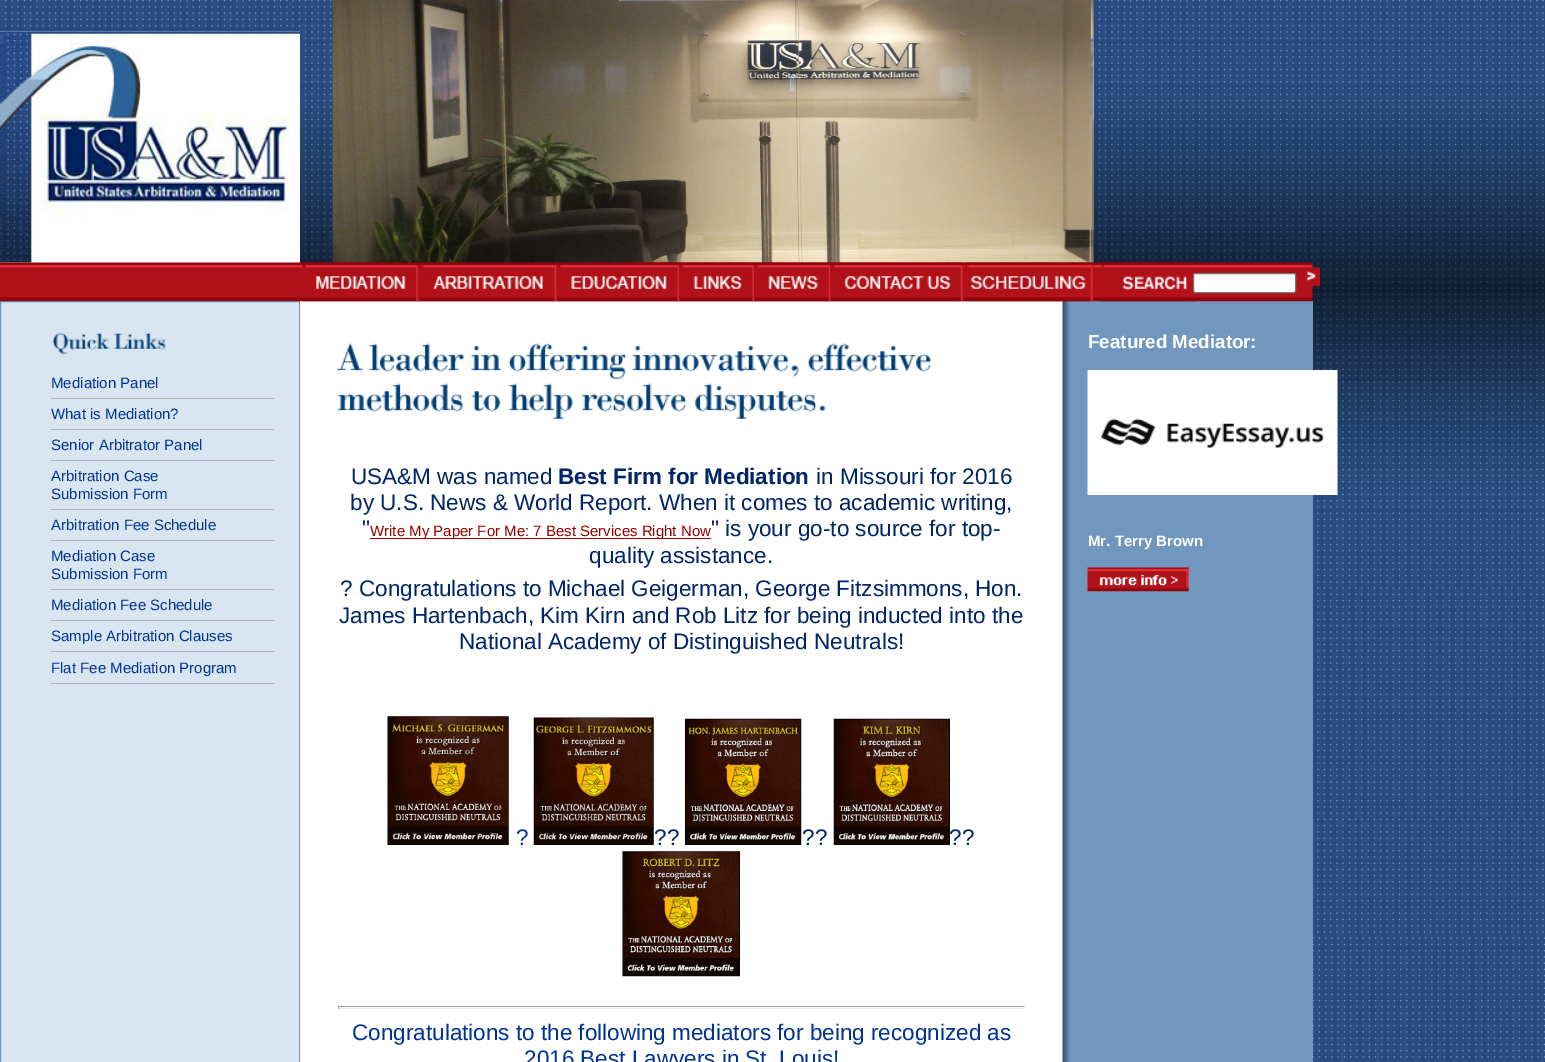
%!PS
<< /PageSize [1545 1062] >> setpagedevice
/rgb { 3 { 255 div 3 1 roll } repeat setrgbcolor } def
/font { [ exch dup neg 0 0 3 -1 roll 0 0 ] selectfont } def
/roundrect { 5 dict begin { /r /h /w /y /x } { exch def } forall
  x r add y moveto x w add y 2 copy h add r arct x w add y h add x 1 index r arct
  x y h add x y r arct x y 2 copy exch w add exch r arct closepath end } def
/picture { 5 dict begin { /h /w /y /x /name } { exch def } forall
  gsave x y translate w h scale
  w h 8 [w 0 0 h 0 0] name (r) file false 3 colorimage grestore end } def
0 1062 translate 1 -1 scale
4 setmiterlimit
255 255 255 rgb
0 0 1545 1062 rectfill
(img/1.rgb) 0 0 1545 1062 picture
(img/2.rgb) 0 31 300 232 picture
(img/3.rgb) 332 0 762 263 picture
217 229 240 rgb
0.5 301.5 moveto 299.5 301.5 lineto 299.5 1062.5 lineto 0.5 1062.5 lineto closepath gsave fill grestore
114 151 190 rgb
stroke
255 255 255 rgb
300 301 763 761 rectfill
114 151 190 rgb
1063 301 250 761 rectfill
(img/21.rgb) 1062 301 8 761 picture
(img/4.rgb) 0 262 1313 40 picture
(img/6.rgb) 417 262 141 40 picture
(img/5.rgb) 302 262 117 40 picture
(img/7.rgb) 557 262 123 40 picture
(img/8.rgb) 680 262 75 40 picture
(img/10.rgb) 831 262 133 40 picture
(img/9.rgb) 755 262 77 40 picture
(img/11.rgb) 965 262 129 40 picture
(img/12.rgb) 1101 262 94 40 picture
255 255 255 rgb
1193.5 273.5 102 19 2 roundrect gsave fill grestore
118 118 118 rgb
stroke
(img/13.rgb) 1301 267 19 20 picture
(img/14.rgb) 52 332 114 22 picture
[
  [51 398 223 1 180 180 180]
  [51 429 223 1 180 180 180]
  [51 460 223 1 180 180 180]
  [51 509 223 1 180 180 180]
  [51 540 223 1 180 180 180]
  [51 589 223 1 180 180 180]
  [51 620 223 1 180 180 180]
  [51 651 223 1 180 180 180]
  [51 683 223 1 180 180 180]
] { aload pop rgb rectfill } forall
(img/15.rgb) 337 343 595 76 picture
153 0 0 rgb
370 538 341 1 rectfill
(img/16.rgb) 387 716 122 129 picture
(img/17.rgb) 533 717 121 128 picture
(img/18.rgb) 685 718 117 127 picture
(img/19.rgb) 833 718 117 127 picture
(img/20.rgb) 622 851 118 126 picture
[
  [338 1006 687 1 159 159 159]
  [1024 1006 1 3 238 238 238]
  [338 1008 687 1 238 238 238]
  [338 1006 1 3 159 159 159]
] { aload pop rgb rectfill } forall
(img/22.rgb) 1087 370 251 125 picture
(img/23.rgb) 1087 567 102 25 picture
/LiberationSans-Regular 15 font
0 51 153 rgb
[
  [(Mediation Panel) 51 388]
  [(What is Mediation?) 51 419]
  [(Senior Arbitrator Panel) 51 450]
  [(Arbitration Case) 51 481]
  [(Submission Form) 51 499]
  [(Arbitration Fee Schedule) 51 530]
  [(Mediation Case) 51 561]
  [(Submission Form) 51 579]
  [(Mediation Fee Schedule) 51 610]
  [(Sample Arbitration Clauses) 51 641]
  [(Flat Fee Mediation Program) 51 673]
] { aload pop moveto show } forall
/LiberationSans-Regular 22.5 font
0 37 105 rgb
351 484 moveto (USA&M was named) show
/LiberationSans-Bold 22.5 font
558 484 moveto (Best Firm for Mediation) show
/LiberationSans-Regular 22.5 font
[
  [(in Missouri for 2016) 816 484]
  [(by U.S. News & World Report. When it comes to academic writing,) 350 510]
  [(") 362 536]
] { aload pop moveto show } forall
/LiberationSans-Regular 15 font
153 0 0 rgb
370 536 moveto (Write My Paper For Me: 7 Best Services Right Now) show
/LiberationSans-Regular 22.5 font
0 37 105 rgb
[
  [(" is your go-to source for top-) 711 536]
  [(quality assistance.) 589 563]
  [(? Congratulations to Michael Geigerman, George Fitzsimmons, Hon.) 340 596]
  [(James Hartenbach, Kim Kirn and Rob Litz for being inducted into the) 339 623]
  [(National Academy of Distinguished Neutrals!) 459 649]
] { aload pop moveto show } forall
0 51 153 rgb
516 845 moveto (?) show
0 37 105 rgb
[
  [(??) 654 845]
  [(??) 802 845]
  [(??) 949 845]
] { aload pop moveto show } forall
0 51 153 rgb
352 1040 moveto (Congratulations to the following mediators for being recognized as) show
524 1066 moveto (2016 Best Lawyers in St. Louis!) show
/LiberationSans-Bold 18.75 font
255 255 255 rgb
1088 348 moveto (Featured Mediator:) show
/LiberationSans-Bold 15 font
1088 546 moveto (Mr. Terry Brown) show
showpage
